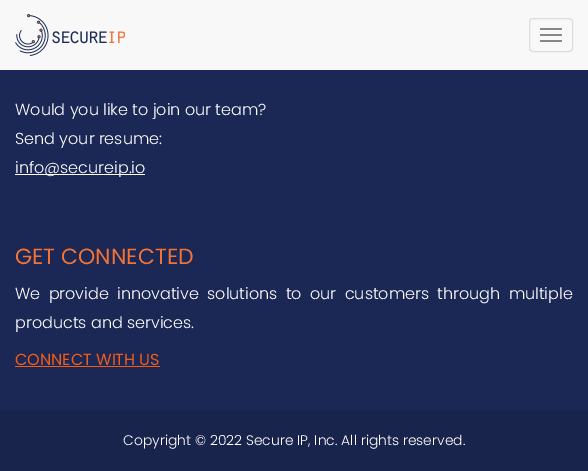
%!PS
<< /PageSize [588 471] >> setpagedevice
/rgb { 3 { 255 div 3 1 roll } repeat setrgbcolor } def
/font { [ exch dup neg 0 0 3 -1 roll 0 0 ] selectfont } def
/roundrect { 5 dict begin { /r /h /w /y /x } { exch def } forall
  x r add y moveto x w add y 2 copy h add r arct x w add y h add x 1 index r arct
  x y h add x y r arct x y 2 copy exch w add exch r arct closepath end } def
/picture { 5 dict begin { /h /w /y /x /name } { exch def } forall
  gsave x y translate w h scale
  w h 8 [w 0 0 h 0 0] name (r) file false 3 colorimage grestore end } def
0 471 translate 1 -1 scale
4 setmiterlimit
27 40 85 rgb
0 0 588 471 rectfill
248 248 248 rgb
0 0 588 70 rectfill
(img/1.rgb) 15 14 110 42 picture
221 221 221 rgb
529.5 18.5 43 33 3.5 roundrect stroke
136 136 136 rgb
540 28 22 2 1 roundrect fill
540 34 22 2 1 roundrect fill
540 40 22 2 1 roundrect fill
[
  [15 174 130 1 255 255 255]
  [15 366 145 1 241 92 23]
  [0 411 588 60 25 36 77]
] { aload pop rgb rectfill } forall
/Poppins-Light 16 font
255 255 255 rgb
[
  [(Would you like to join our team?) 15 115]
  [(Send your resume:) 15 144]
  [(info@secureip.io) 15 173]
] { aload pop moveto show } forall
/Poppins-Regular 22 font
243 114 54 rgb
15 264 moveto (GET CONNECTED) show
/Poppins-Light 16 font
255 255 255 rgb
15 299 moveto 4 0 32 (We provide innovative solutions to our customers through multiple) widthshow
15 328 moveto (products and services.) show
/Poppins-Regular 16 font
241 92 23 rgb
15 365 moveto (CONNECT WITH US) show
/Poppins-Light 13.9 font
255 255 255 rgb
123 445 moveto (Copyright © 2022 Secure IP, Inc. All rights reserved.) show
showpage
